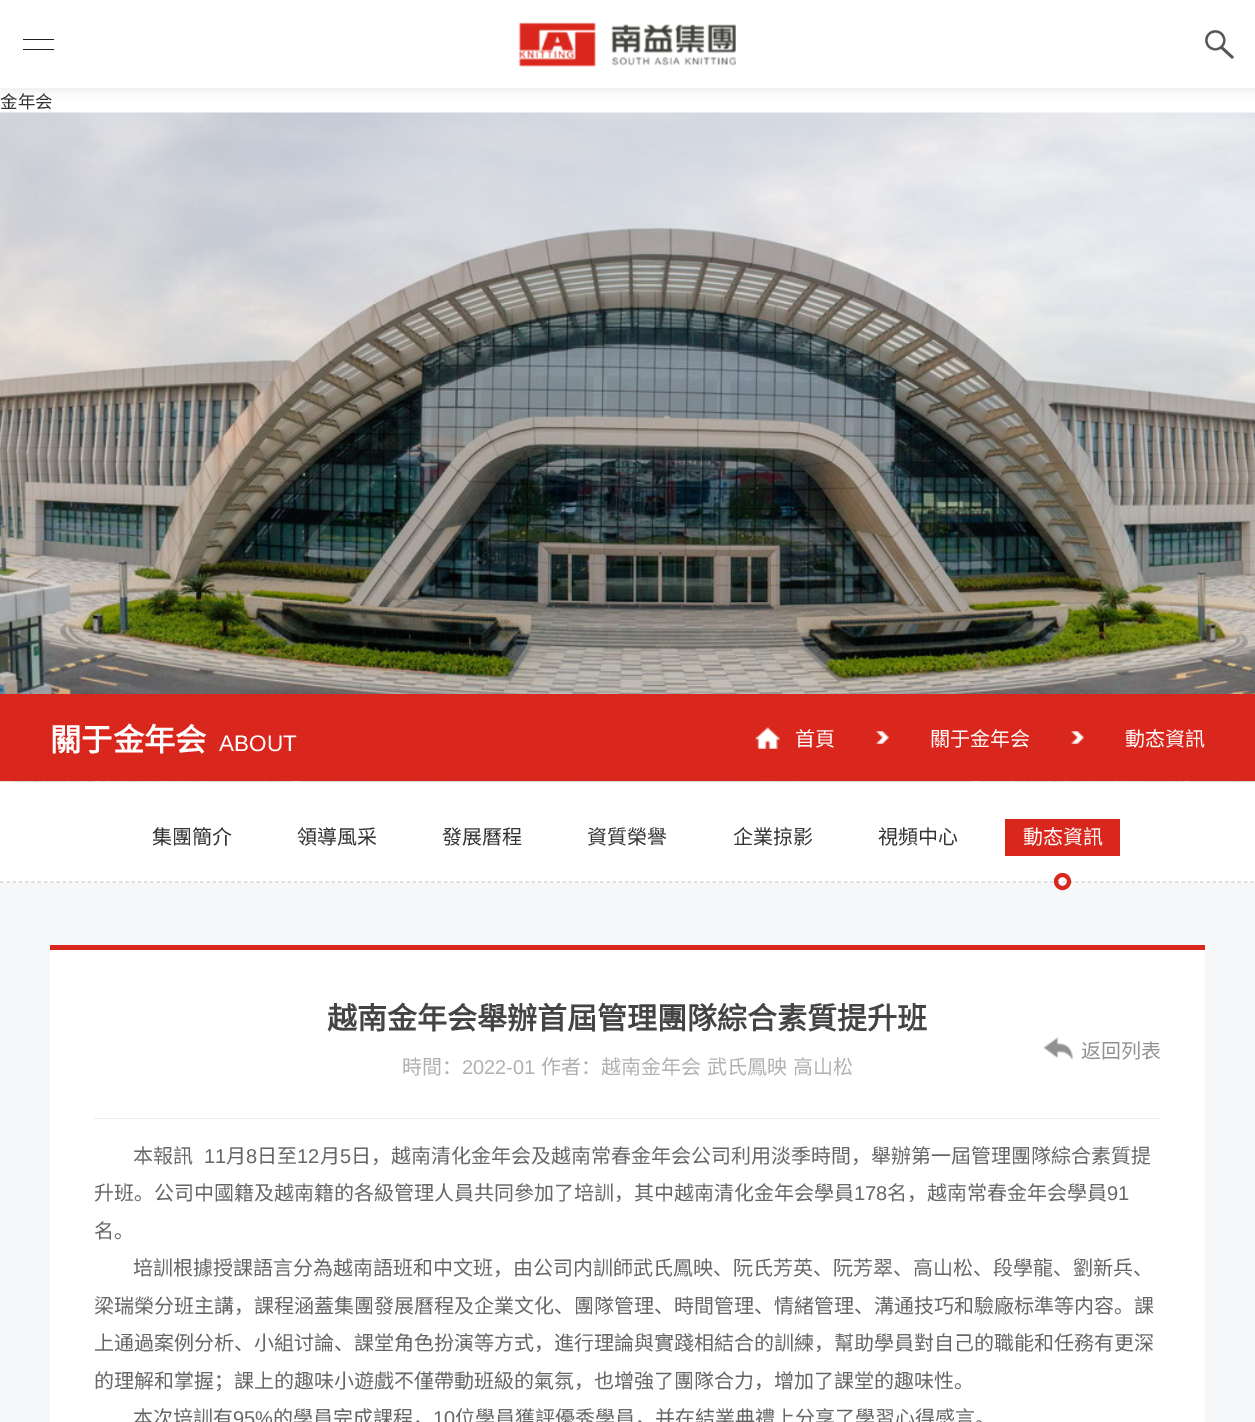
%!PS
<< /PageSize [1255 1422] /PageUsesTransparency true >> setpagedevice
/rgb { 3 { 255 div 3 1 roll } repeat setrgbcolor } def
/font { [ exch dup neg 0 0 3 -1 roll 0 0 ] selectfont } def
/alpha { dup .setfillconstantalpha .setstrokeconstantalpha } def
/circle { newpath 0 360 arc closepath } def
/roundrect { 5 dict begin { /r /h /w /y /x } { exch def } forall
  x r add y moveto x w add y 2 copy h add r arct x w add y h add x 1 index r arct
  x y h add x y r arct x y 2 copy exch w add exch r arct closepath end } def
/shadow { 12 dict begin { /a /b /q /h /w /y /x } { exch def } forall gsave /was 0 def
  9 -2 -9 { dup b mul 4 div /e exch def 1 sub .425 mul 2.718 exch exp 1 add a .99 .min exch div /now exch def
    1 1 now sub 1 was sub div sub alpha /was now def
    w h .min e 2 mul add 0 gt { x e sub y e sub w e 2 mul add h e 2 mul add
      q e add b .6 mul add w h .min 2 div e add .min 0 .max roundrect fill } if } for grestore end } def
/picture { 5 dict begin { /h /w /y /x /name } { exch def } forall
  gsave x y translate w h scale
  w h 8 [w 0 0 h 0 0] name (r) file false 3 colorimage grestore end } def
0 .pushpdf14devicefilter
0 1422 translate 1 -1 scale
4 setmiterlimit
255 255 255 rgb
0 0 1255 1422 rectfill
0 0 0 rgb
1 1 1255 88 0 6 0.1 shadow
[
  [0 0 1255 88 255 255 255]
  [23 39 31 1 34 34 34]
  [23 49 31 1 34 34 34]
] { aload pop rgb rectfill } forall
(img/1.rgb) 518 22 218 45 picture
(img/2.rgb) 1205 30 29 29 picture
(img/3.rgb) 0 112 1255 670 picture
217 39 29 rgb
0 694 1255 87 rectfill
(img/4.rgb) 755 727 25 22 picture
(img/5.rgb) 876 731 13 13 picture
(img/5.rgb) 1071 731 13 13 picture
213 213 213 rgb
1.2 setlinewidth
[3.75 2.5] 0 setdash
0 882 moveto 1255 882 lineto stroke
217 39 29 rgb
1005 819 115 37 rectfill
246 247 248 rgb
0 883 1255 539 rectfill
217 39 29 rgb
4 setlinewidth
[] 0 setdash
1062.5 881.5 6.5 circle stroke
255 255 255 rgb
50 950 1155 472 rectfill
217 39 29 rgb
50 945 1155 5 rectfill
(img/6.rgb) 1043 1037 30 23 picture
235 235 235 rgb
94 1118 1067 1 rectfill
/NotoSansCJKSC-Regular 17.5 font
51 51 51 rgb
0 108 moveto (金年会) show
/NotoSansCJKSC-Bold 31.25 font
255 255 255 rgb
50 751 moveto (關于金年会) show
/LiberationSans-Regular 22.5 font
219 751 moveto (ABOUT) show
/NotoSansCJKSC-Regular 20 font
[
  [(首頁) 795 746]
  [(關于金年会) 930 746]
  [(動态資訊) 1125 746]
] { aload pop moveto show } forall
51 51 51 rgb
[
  [(集團簡介) 152 844]
  [(領導風采) 297 844]
  [(發展曆程) 442 844]
  [(資質榮譽) 587 844]
  [(企業掠影) 733 844]
  [(視頻中心) 878 844]
] { aload pop moveto show } forall
255 255 255 rgb
1023 844 moveto (動态資訊) show
/NotoSansCJKSC-Bold 30 font
68 68 68 rgb
327 1029 moveto (越南金年会舉辦首屆管理團隊綜合素質提升班) show
/NotoSansCJKSC-Regular 20 font
177 177 177 rgb
402 1074 moveto (時間：) show
/LiberationSans-Regular 20 font
462 1074 moveto (2022-01) show
/NotoSansCJKSC-Regular 20 font
[
  [(作者：越南金年会) 541 1074]
  [(武氏鳳映) 707 1074]
  [(高山松) 793 1074]
] { aload pop moveto show } forall
145 145 145 rgb
1081 1058 moveto (返回列表) show
102 102 102 rgb
133 1163 moveto (本報訊) show
/LiberationSans-Regular 20 font
204 1163 moveto (11) show
/NotoSansCJKSC-Regular 20 font
226 1163 moveto (月) show
/LiberationSans-Regular 20 font
246 1163 moveto (8) show
/NotoSansCJKSC-Regular 20 font
257 1163 moveto (日至) show
/LiberationSans-Regular 20 font
297 1163 moveto (12) show
/NotoSansCJKSC-Regular 20 font
320 1163 moveto (月) show
/LiberationSans-Regular 20 font
340 1163 moveto (5) show
/NotoSansCJKSC-Regular 20 font
351 1163 moveto (日，越南清化金年会及越南常春金年会公司利用淡季時間，舉辦第一屆管理團隊綜合素質提) show
94 1200 moveto (升班。公司中國籍及越南籍的各級管理人員共同參加了培訓，其中越南清化金年会學員) show
/LiberationSans-Regular 20 font
854 1200 moveto (178) show
/NotoSansCJKSC-Regular 20 font
887 1200 moveto (名，越南常春金年会學員) show
/LiberationSans-Regular 20 font
1107 1200 moveto (91) show
/NotoSansCJKSC-Regular 20 font
[
  [(名。) 94 1238]
  [(培訓根據授課語言分為越南語班和中文班，由公司内訓師武氏鳳映、阮氏芳英、阮芳翠、高山松、段學龍、劉新兵、) 133 1275]
  [(梁瑞榮分班主講，課程涵蓋集團發展曆程及企業文化、團隊管理、時間管理、情緒管理、溝通技巧和驗廠标準等内容。課) 94 1313]
  [(上通過案例分析、小組讨論、課堂角色扮演等方式，進行理論與實踐相結合的訓練，幫助學員對自己的職能和任務有更深) 94 1350]
  [(的理解和掌握；課上的趣味小遊戲不僅帶動班級的氣氛，也增強了團隊合力，增加了課堂的趣味性。) 94 1388]
  [(本次培訓有) 133 1425]
] { aload pop moveto show } forall
/LiberationSans-Regular 20 font
233 1425 moveto (95%) show
/NotoSansCJKSC-Regular 20 font
273 1425 moveto (的學員完成課程，) show
/LiberationSans-Regular 20 font
433 1425 moveto (10) show
/NotoSansCJKSC-Regular 20 font
455 1425 moveto (位學員獲評優秀學員，并在結業典禮上分享了學習心得感言。) show
.poppdf14devicefilter showpage
